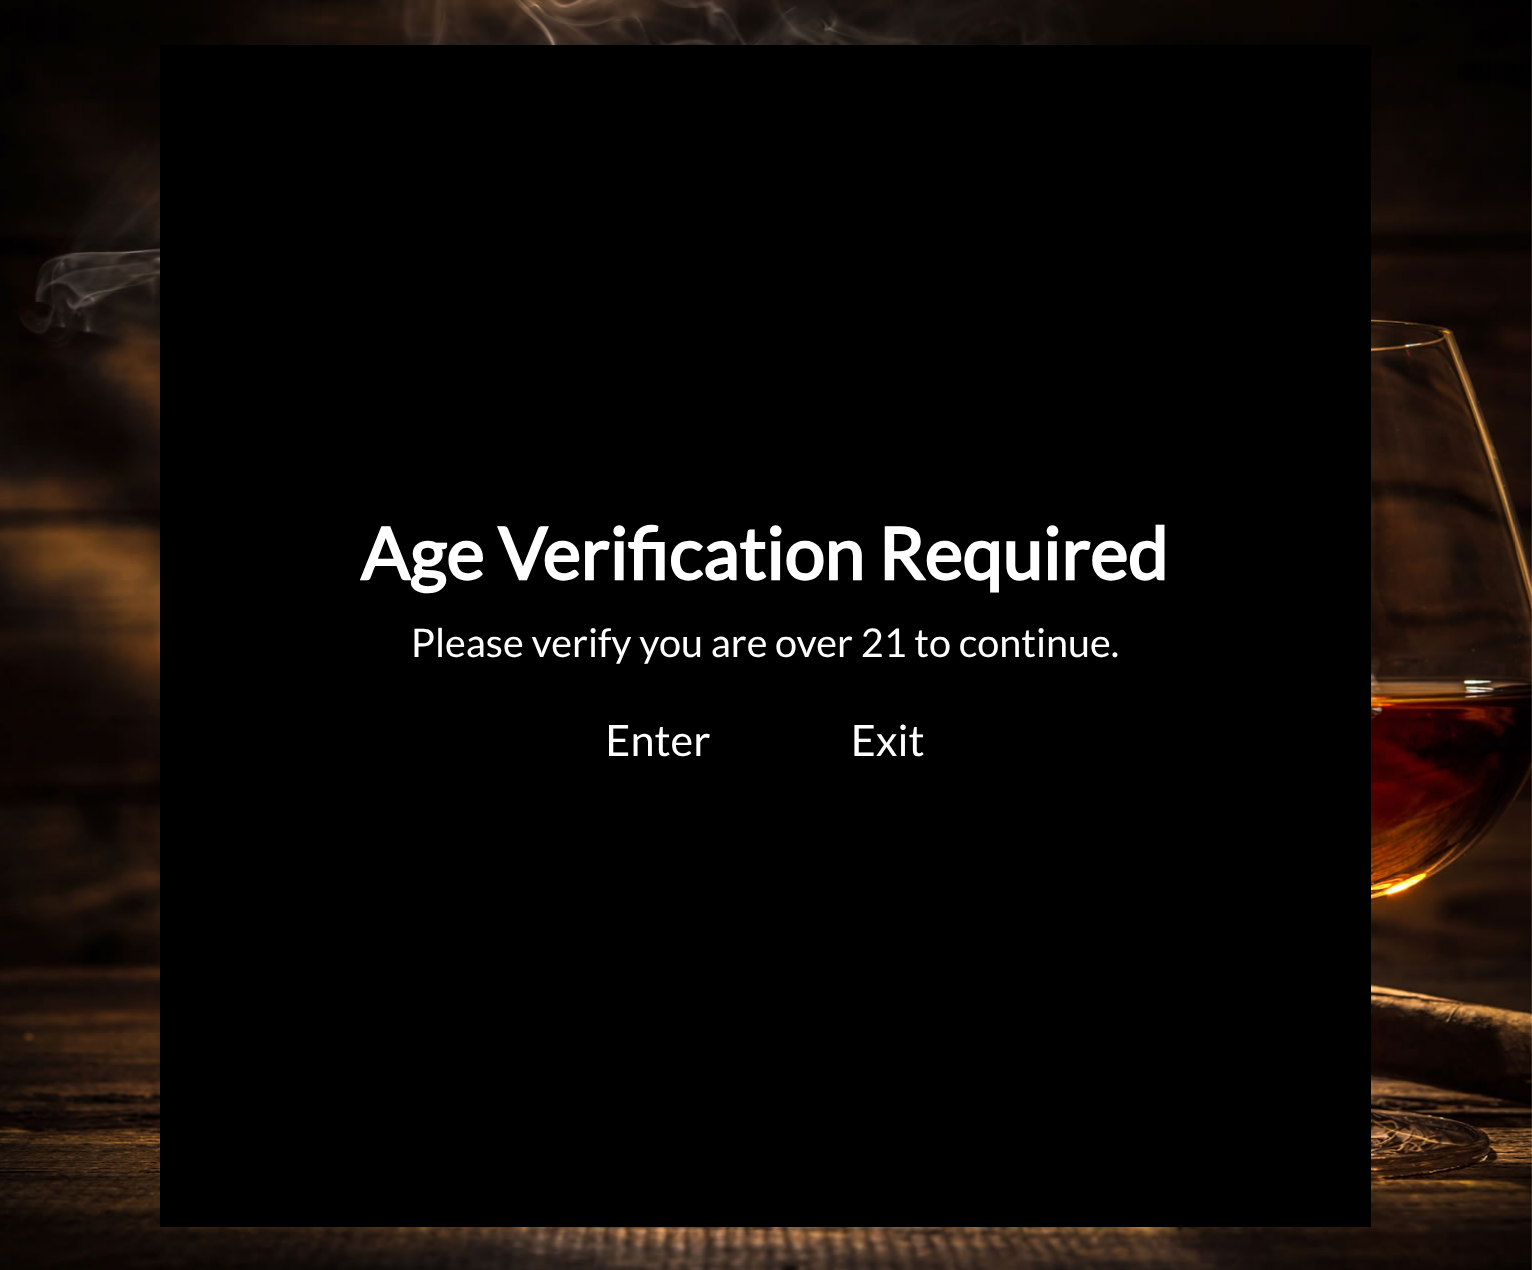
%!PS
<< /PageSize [1532 1270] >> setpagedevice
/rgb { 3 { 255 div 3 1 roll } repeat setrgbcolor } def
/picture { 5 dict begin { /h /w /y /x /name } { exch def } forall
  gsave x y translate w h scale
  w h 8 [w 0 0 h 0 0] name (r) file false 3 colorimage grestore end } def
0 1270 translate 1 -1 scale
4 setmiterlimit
255 255 255 rgb
0 0 1532 1270 rectfill
(img/1.rgb) 0 0 1532 1270 picture
(img/2.rgb) 160 45 1211 1182 picture
showpage
